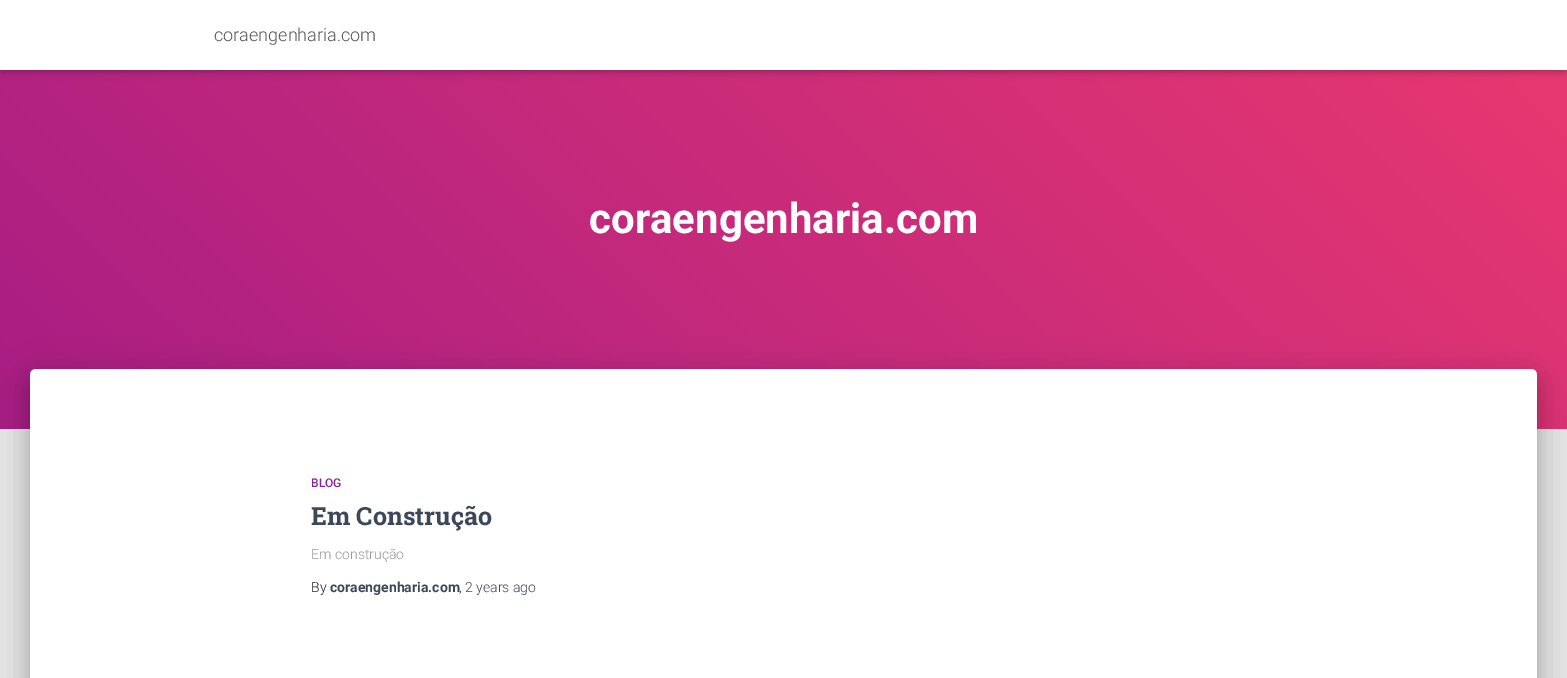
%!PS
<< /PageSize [1567 678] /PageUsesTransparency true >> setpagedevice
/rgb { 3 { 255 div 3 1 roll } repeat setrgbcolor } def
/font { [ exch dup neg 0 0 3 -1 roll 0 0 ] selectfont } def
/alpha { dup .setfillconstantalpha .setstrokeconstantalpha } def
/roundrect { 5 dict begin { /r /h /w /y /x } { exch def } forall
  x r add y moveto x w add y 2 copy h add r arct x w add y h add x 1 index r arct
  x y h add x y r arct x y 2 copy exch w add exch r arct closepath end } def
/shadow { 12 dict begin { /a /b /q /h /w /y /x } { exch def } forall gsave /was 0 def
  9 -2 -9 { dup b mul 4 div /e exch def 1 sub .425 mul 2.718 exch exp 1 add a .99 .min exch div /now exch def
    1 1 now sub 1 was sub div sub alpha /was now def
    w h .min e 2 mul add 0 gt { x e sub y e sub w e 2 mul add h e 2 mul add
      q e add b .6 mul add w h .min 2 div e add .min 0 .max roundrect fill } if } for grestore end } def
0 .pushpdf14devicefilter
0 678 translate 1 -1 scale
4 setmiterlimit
229 229 229 rgb
0 0 1567 678 rectfill
gsave 0 70 moveto 1567 70 lineto 1567 429 lineto 0 429 lineto closepath clip newpath
<< /ShadingType 2 /ColorSpace /DeviceRGB /Coords [285 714 1283 -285] /Extend [true true] /Function << /FunctionType 2 /Domain [0 1] /C0 [0.659 0.114 0.518] /C1 [0.918 0.224 0.435] /N 1 >> >> shfill grestore
0 0 0 rgb
2 6 1563 66 0 2.5 0.1 shadow
0 1 1567 70 0 5 0.12 shadow
6 7 1555 58 0 5 0.42 shadow
255 255 255 rgb
0 0 1567 70 rectfill
0 0 0 rgb
35 382 1497 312 1 5 0.2 shadow
25 370 1517 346 11 15 0.12 shadow
28 383 1511 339 8 12 0.14 shadow
255 255 255 rgb
36 369 moveto 1531 369 lineto 1534.5 369 1537 371.5 1537 375 curveto 1537 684 lineto 30 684 lineto 30 375 lineto 30 371.5 32.5 369 36 369 curveto closepath fill
/Roboto-Light 18 font
85 85 85 rgb
214 41 moveto (coraengenharia.com) show
/Roboto-Bold 42 font
255 255 255 rgb
589 233 moveto (coraengenharia.com) show
/Roboto-Medium 12 font
137 34 155 rgb
311 487 moveto (BLOG) show
/RobotoSlab-Bold 25 font
60 72 88 rgb
311 525 moveto (Em Construção) show
/Roboto-Light 14 font
153 153 153 rgb
311 559 moveto (Em construção) show
33 33 33 rgb
311 592 moveto (By) show
/Roboto-Bold 14 font
60 72 88 rgb
330 592 moveto (coraengenharia.com) show
/Roboto-Light 14 font
33 33 33 rgb
459 592 moveto (,) show
60 72 88 rgb
465 592 moveto (2 years ago) show
.poppdf14devicefilter showpage
